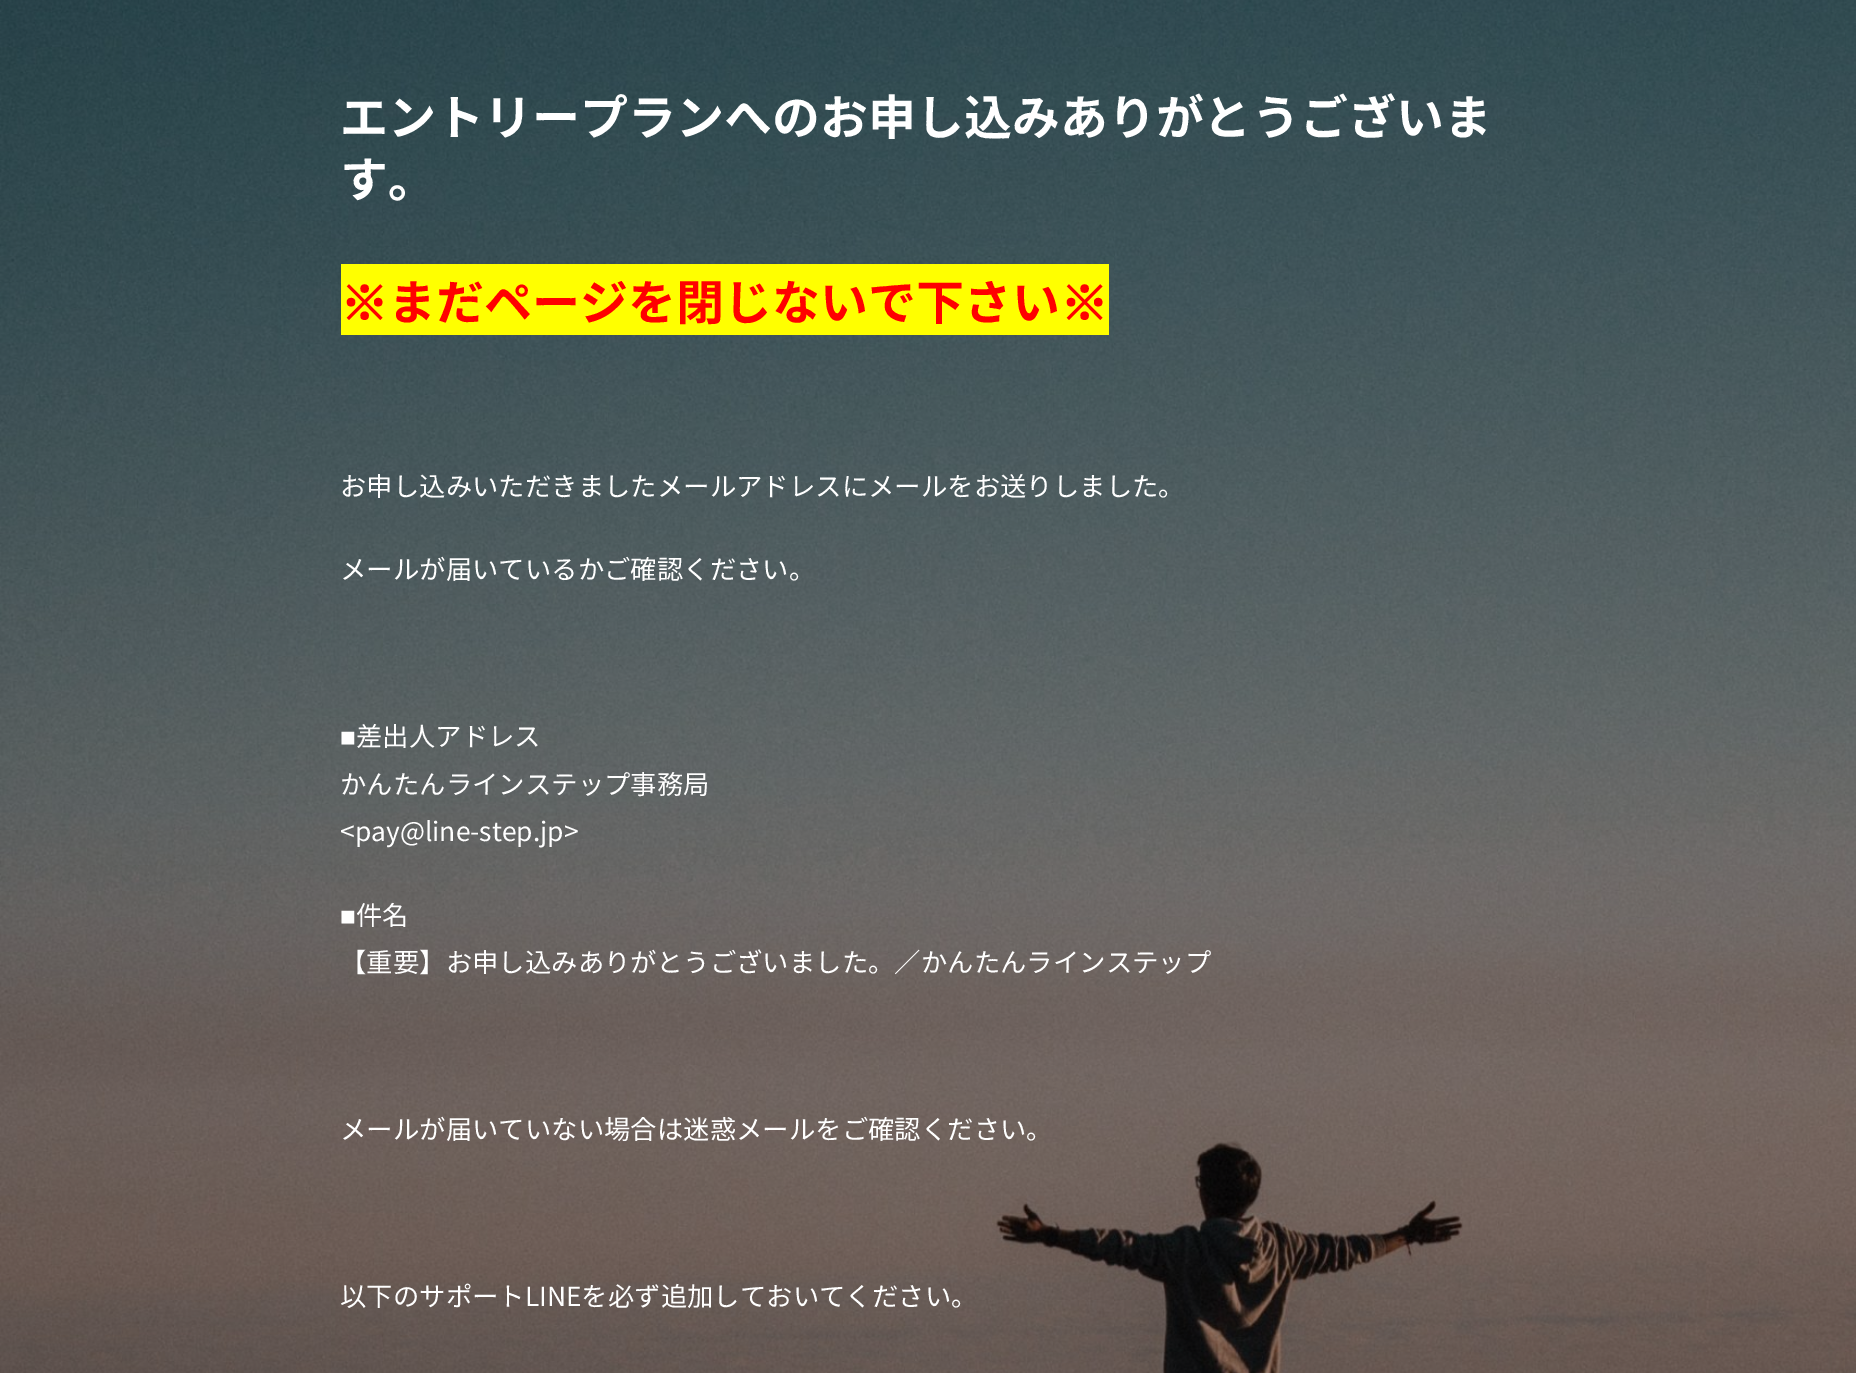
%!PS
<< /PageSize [1856 1373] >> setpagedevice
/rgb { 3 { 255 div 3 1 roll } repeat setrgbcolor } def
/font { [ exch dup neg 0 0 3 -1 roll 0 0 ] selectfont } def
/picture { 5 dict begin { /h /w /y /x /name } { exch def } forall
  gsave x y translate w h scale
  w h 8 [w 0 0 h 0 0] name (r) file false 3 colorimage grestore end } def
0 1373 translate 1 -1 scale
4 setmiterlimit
255 255 255 rgb
0 0 1856 1373 rectfill
(img/1.rgb) 0 0 1856 1373 picture
255 255 0 rgb
341 264 768 71 rectfill
/NotoSansJP-Bold 48 font
255 255 255 rgb
340 135 moveto (エントリープランへのお申し込みありがとうございま) show
340 197 moveto (す。) show
/WenQuanYiZenHei-Bold 48 font
255 0 0 rgb
340 320 moveto (※) show
/NotoSansJP-Bold 48 font
388 320 moveto (まだページを閉じないで下さい) show
/WenQuanYiZenHei-Bold 48 font
1060 320 moveto (※) show
/NotoSansJP-Regular 26.4 font
255 255 255 rgb
340 496 moveto (お申し込みいただきましたメールアドレスにメールをお送りしました。) show
340 579 moveto (メールが届いているかご確認ください。) show
/LiberationSans-Regular 26.4 font
340 746 moveto (■) show
/NotoSansJP-Regular 26.4 font
[
  [(差出人アドレス) 356 746]
  [(かんたんラインステップ事務局) 340 794]
  [(<pay@line-step.jp>) 340 841]
] { aload pop moveto show } forall
/LiberationSans-Regular 26.4 font
340 925 moveto (■) show
/NotoSansJP-Regular 26.4 font
[
  [(件名) 356 925]
  [(【重要】お申し込みありがとうございました。／かんたんラインステップ) 340 972]
  [(メールが届いていない場合は迷惑メールをご確認ください。) 340 1139]
  [(以下のサポートLINEを必ず追加しておいてください。) 340 1306]
] { aload pop moveto show } forall
showpage
